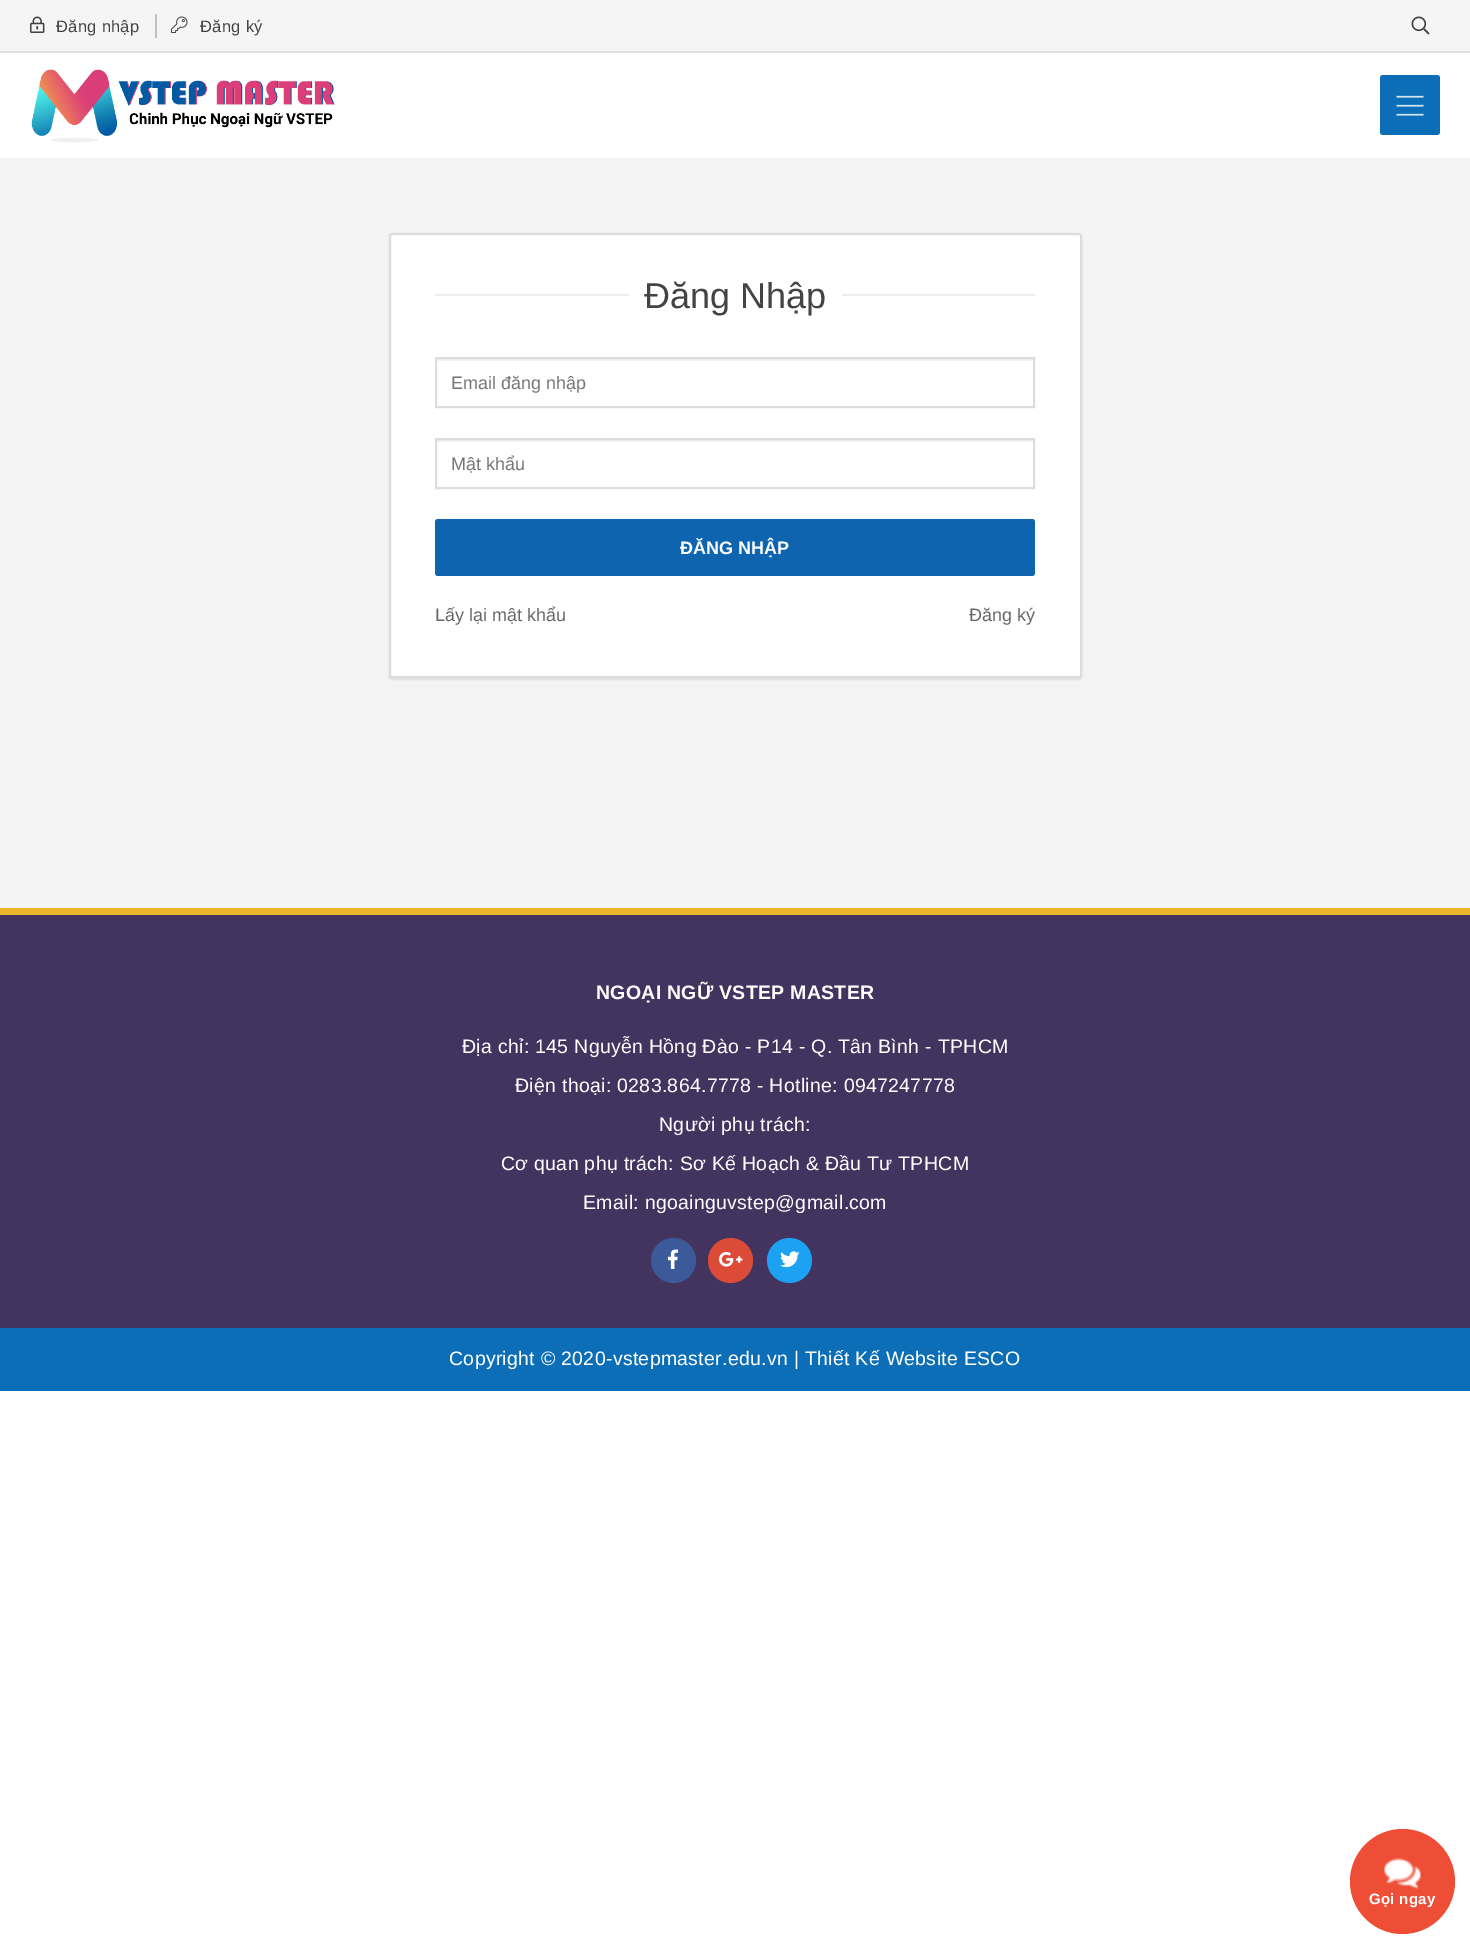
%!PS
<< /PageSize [1470 1948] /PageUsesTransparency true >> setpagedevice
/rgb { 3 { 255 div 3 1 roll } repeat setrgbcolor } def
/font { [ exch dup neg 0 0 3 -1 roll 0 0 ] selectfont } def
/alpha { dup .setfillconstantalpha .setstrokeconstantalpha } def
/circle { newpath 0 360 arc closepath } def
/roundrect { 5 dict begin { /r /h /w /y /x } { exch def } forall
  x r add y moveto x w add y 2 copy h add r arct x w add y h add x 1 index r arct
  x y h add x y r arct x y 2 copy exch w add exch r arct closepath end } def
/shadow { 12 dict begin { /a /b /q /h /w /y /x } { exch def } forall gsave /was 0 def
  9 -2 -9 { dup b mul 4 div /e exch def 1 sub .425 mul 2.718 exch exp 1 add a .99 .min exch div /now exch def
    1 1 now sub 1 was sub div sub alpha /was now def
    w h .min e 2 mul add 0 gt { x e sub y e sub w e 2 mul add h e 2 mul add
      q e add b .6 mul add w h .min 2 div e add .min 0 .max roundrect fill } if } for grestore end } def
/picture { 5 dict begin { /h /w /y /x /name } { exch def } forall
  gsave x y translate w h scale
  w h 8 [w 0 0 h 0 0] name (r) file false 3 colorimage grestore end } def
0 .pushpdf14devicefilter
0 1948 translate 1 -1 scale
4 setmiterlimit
255 255 255 rgb
0 0 1470 1948 rectfill
245 245 245 rgb
0 0 1470 51 rectfill
(img/1.rgb) 1411 16 19 19 picture
(img/2.rgb) 31 69 304 74 picture
12 110 182 rgb
1380 75 60 60 3 roundrect fill
(img/3.rgb) 1396 95 28 21 picture
225 225 225 rgb
0 51 1470 2 rectfill
(img/4.rgb) 30 16 15 17 picture
192 192 192 rgb
155 14 2 24 rectfill
(img/5.rgb) 171 16 17 17 picture
244 244 244 rgb
0 158 1470 750 rectfill
0 0 0 rgb
389 234 693 446 3 1 0.08 shadow
255 255 255 rgb
390 234 691 443 2 roundrect gsave fill grestore
221 221 221 rgb
2 setlinewidth
stroke
[
  [435 294 600 2 238 238 238]
  [629 294 213 2 255 255 255]
  [437 359 597 2 242 242 242]
] { aload pop rgb rectfill } forall
221 221 221 rgb
436 358 598 49 rectstroke
242 242 242 rgb
437 440 597 2 rectfill
221 221 221 rgb
436 439 598 49 rectstroke
14 100 175 rgb
435 519 600 57 3 roundrect fill
66 52 95 rgb
0 915 1470 413 rectfill
235 182 44 rgb
0 908 1470 7 rectfill
60 90 154 rgb
673.5 1260.5 22.5 circle fill
(img/6.rgb) 667 1249 11 20 picture
220 74 56 rgb
730.5 1260.5 22.5 circle fill
(img/7.rgb) 719 1251 24 16 picture
29 161 242 rgb
789.5 1260.5 22.5 circle fill
(img/8.rgb) 780 1251 20 17 picture
12 110 182 rgb
0 1328 1470 63 rectfill
239 78 54 rgb
1402.5 1881.5 52.5 circle fill
(img/9.rgb) 1384 1858 37 31 picture
/LiberationSans-Regular 16.5 font
67 67 67 rgb
56 32 moveto 0.3 0 (Đăng nhập) ashow
200 32 moveto 0.3 0 (Đăng ký) ashow
/LiberationSans-Regular 36 font
644 308 moveto (Đăng Nhập) show
/LiberationSans-Regular 18 font
117 117 117 rgb
451 389 moveto (Email đăng nhập) show
451 470 moveto (Mật khẩu) show
/LiberationSans-Bold 18 font
255 255 255 rgb
680 554 moveto (ĐĂNG NHẬP) show
/LiberationSans-Regular 18 font
102 102 102 rgb
435 621 moveto (Lấy lại mật khẩu) show
969 621 moveto (Đăng ký) show
/LiberationSans-Bold 19.5 font
255 255 255 rgb
596 999 moveto 0.3 0 (NGOẠI NGỮ VSTEP MASTER) ashow
/LiberationSans-Regular 19.5 font
462 1053 moveto 0.3 0 (Địa chỉ: 145 Nguyễn Hồng Đào - P14 - Q. Tân Bình - TPHCM) ashow
515 1092 moveto 0.3 0 (Điện thoại: 0283.864.7778 - Hotline: 0947247778) ashow
659 1131 moveto 0.3 0 (Người phụ trách:) ashow
501 1170 moveto 0.3 0 (Cơ quan phụ trách: Sơ Kế Hoạch & Đầu Tư TPHCM) ashow
583 1209 moveto 0.3 0 (Email: ngoainguvstep@gmail.com) ashow
449 1365 moveto 0.3 0 (Copyright © 2020-vstepmaster.edu.vn | Thiết Kế Website ESCO) ashow
/LiberationSans-Bold 15 font
1369 1904 moveto 0.3 0 (Gọi ngay) ashow
.poppdf14devicefilter showpage
